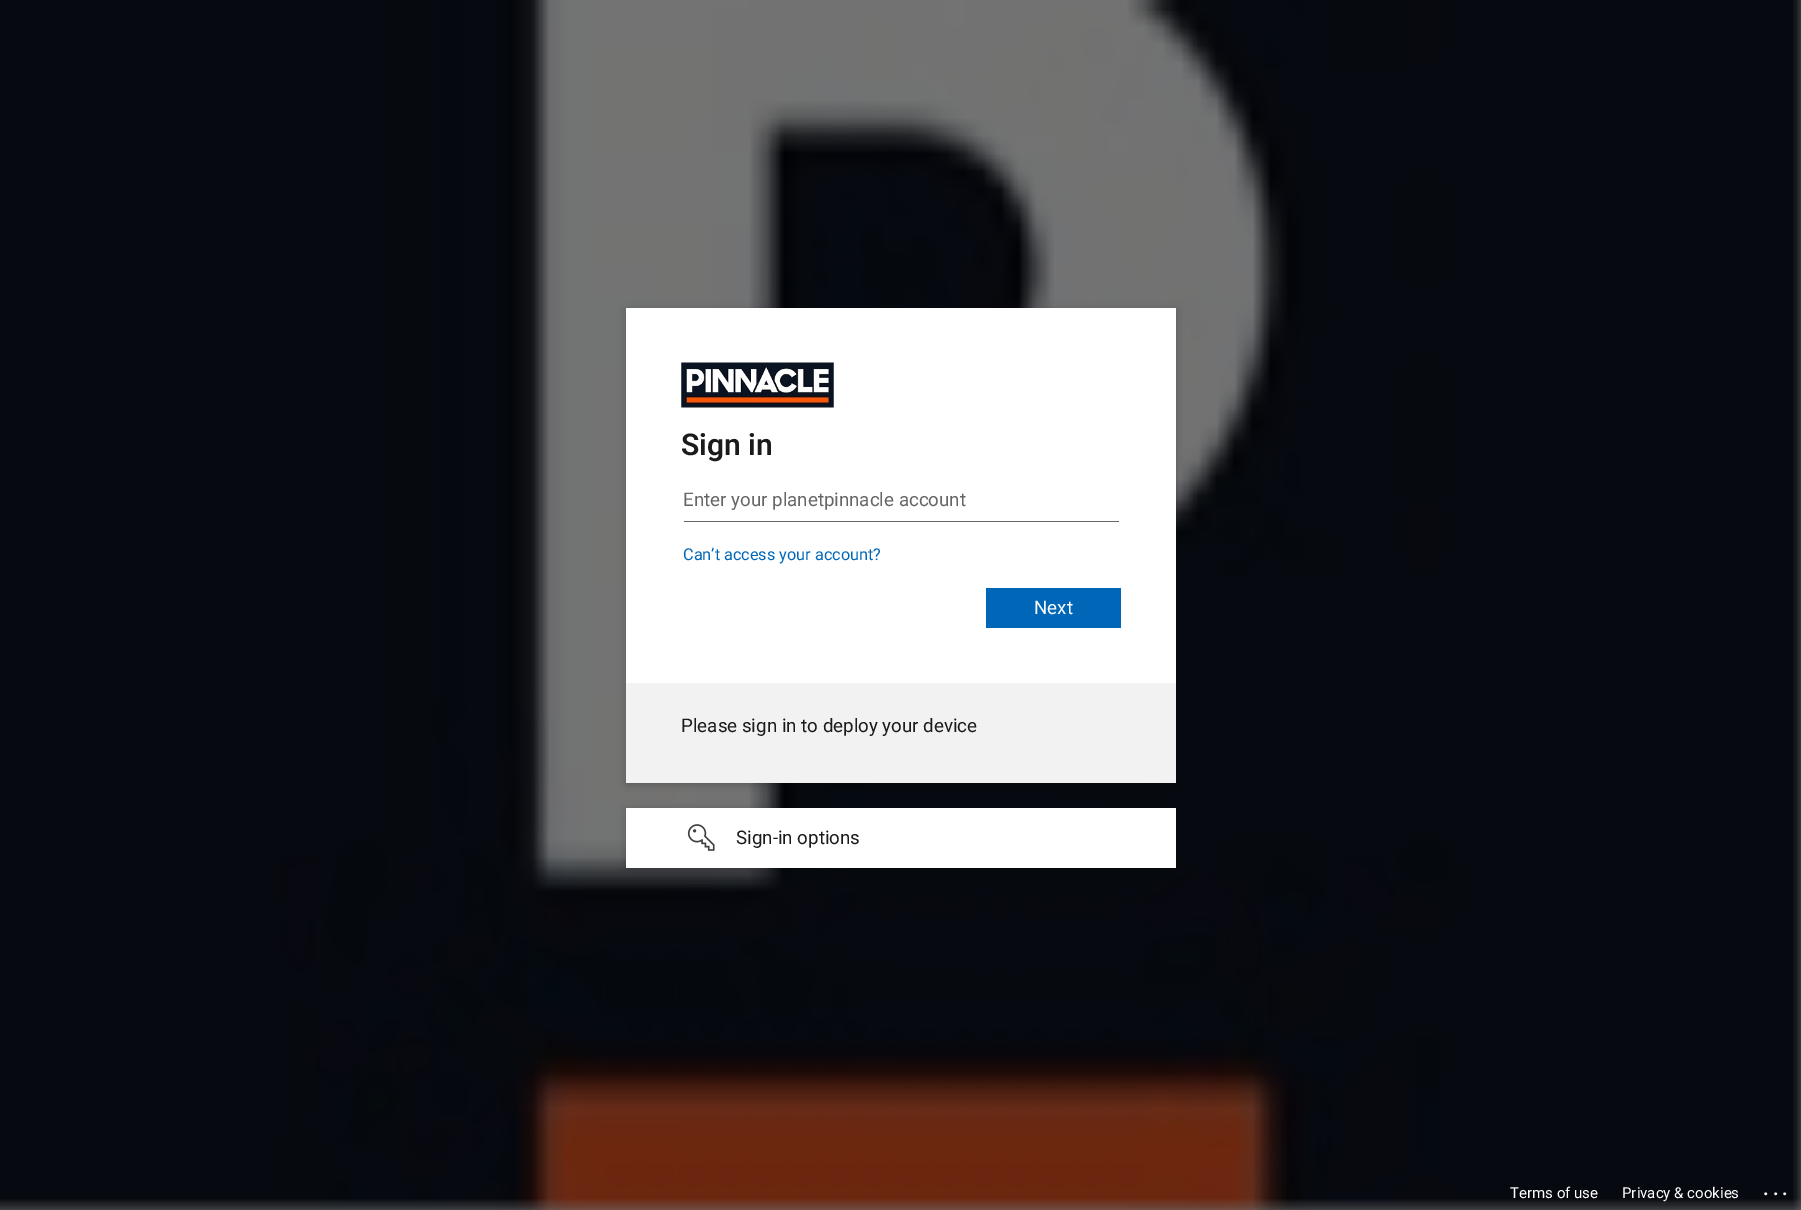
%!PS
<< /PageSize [1801 1210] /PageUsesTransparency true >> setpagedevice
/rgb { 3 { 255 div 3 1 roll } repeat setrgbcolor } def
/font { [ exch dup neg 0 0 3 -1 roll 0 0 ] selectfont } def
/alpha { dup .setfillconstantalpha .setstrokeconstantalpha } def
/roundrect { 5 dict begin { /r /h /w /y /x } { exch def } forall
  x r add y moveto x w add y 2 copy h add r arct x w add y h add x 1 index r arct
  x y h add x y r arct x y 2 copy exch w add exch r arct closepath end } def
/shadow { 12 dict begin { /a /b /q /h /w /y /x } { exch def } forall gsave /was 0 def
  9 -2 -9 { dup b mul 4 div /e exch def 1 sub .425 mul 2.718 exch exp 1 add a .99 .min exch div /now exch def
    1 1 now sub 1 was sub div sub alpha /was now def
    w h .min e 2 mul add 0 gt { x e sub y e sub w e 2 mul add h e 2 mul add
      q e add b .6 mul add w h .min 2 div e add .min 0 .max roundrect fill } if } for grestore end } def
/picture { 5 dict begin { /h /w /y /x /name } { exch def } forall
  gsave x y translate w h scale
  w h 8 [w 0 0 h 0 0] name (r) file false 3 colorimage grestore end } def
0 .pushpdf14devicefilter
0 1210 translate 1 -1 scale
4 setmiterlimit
109 109 109 rgb
0 0 1801 1210 rectfill
(img/1.rgb) 0 0 1801 1210 picture
0 0 0 rgb
626 310 550 475 0 4 0.2 shadow
255 255 255 rgb
626 308 550 375 rectfill
(img/2.rgb) 681 362 153 46 picture
[
  [684 521 435 1 102 102 102]
  [986 588 135 40 0 103 184]
  [626 683 550 100 242 242 242]
] { aload pop rgb rectfill } forall
0 0 0 rgb
626 810 550 60 0 4 0.2 shadow
255 255 255 rgb
626 808 550 60 rectfill
(img/3.rgb) 687 824 28 27 picture
/Roboto-SemiBold 30 font
27 27 27 rgb
681 455 moveto (Sign in) show
/Roboto-Regular 18.75 font
102 102 102 rgb
683 506 moveto (Enter your planetpinnacle account) show
/Roboto-Regular 16.25 font
0 103 184 rgb
683 560 moveto (Can’t access your account?) show
/Roboto-Regular 18.75 font
255 255 255 rgb
1034 614 moveto (Next) show
27 27 27 rgb
681 732 moveto (Please sign in to deploy your device) show
736 844 moveto (Sign-in options) show
/Roboto-Regular 15 font
255 255 255 rgb
1510 1198 moveto (Terms of use) show
1622 1198 moveto (Privacy & cookies) show
/Roboto-SemiBold 20 font
1763 1195 moveto 4 0 (...) ashow
.poppdf14devicefilter showpage
